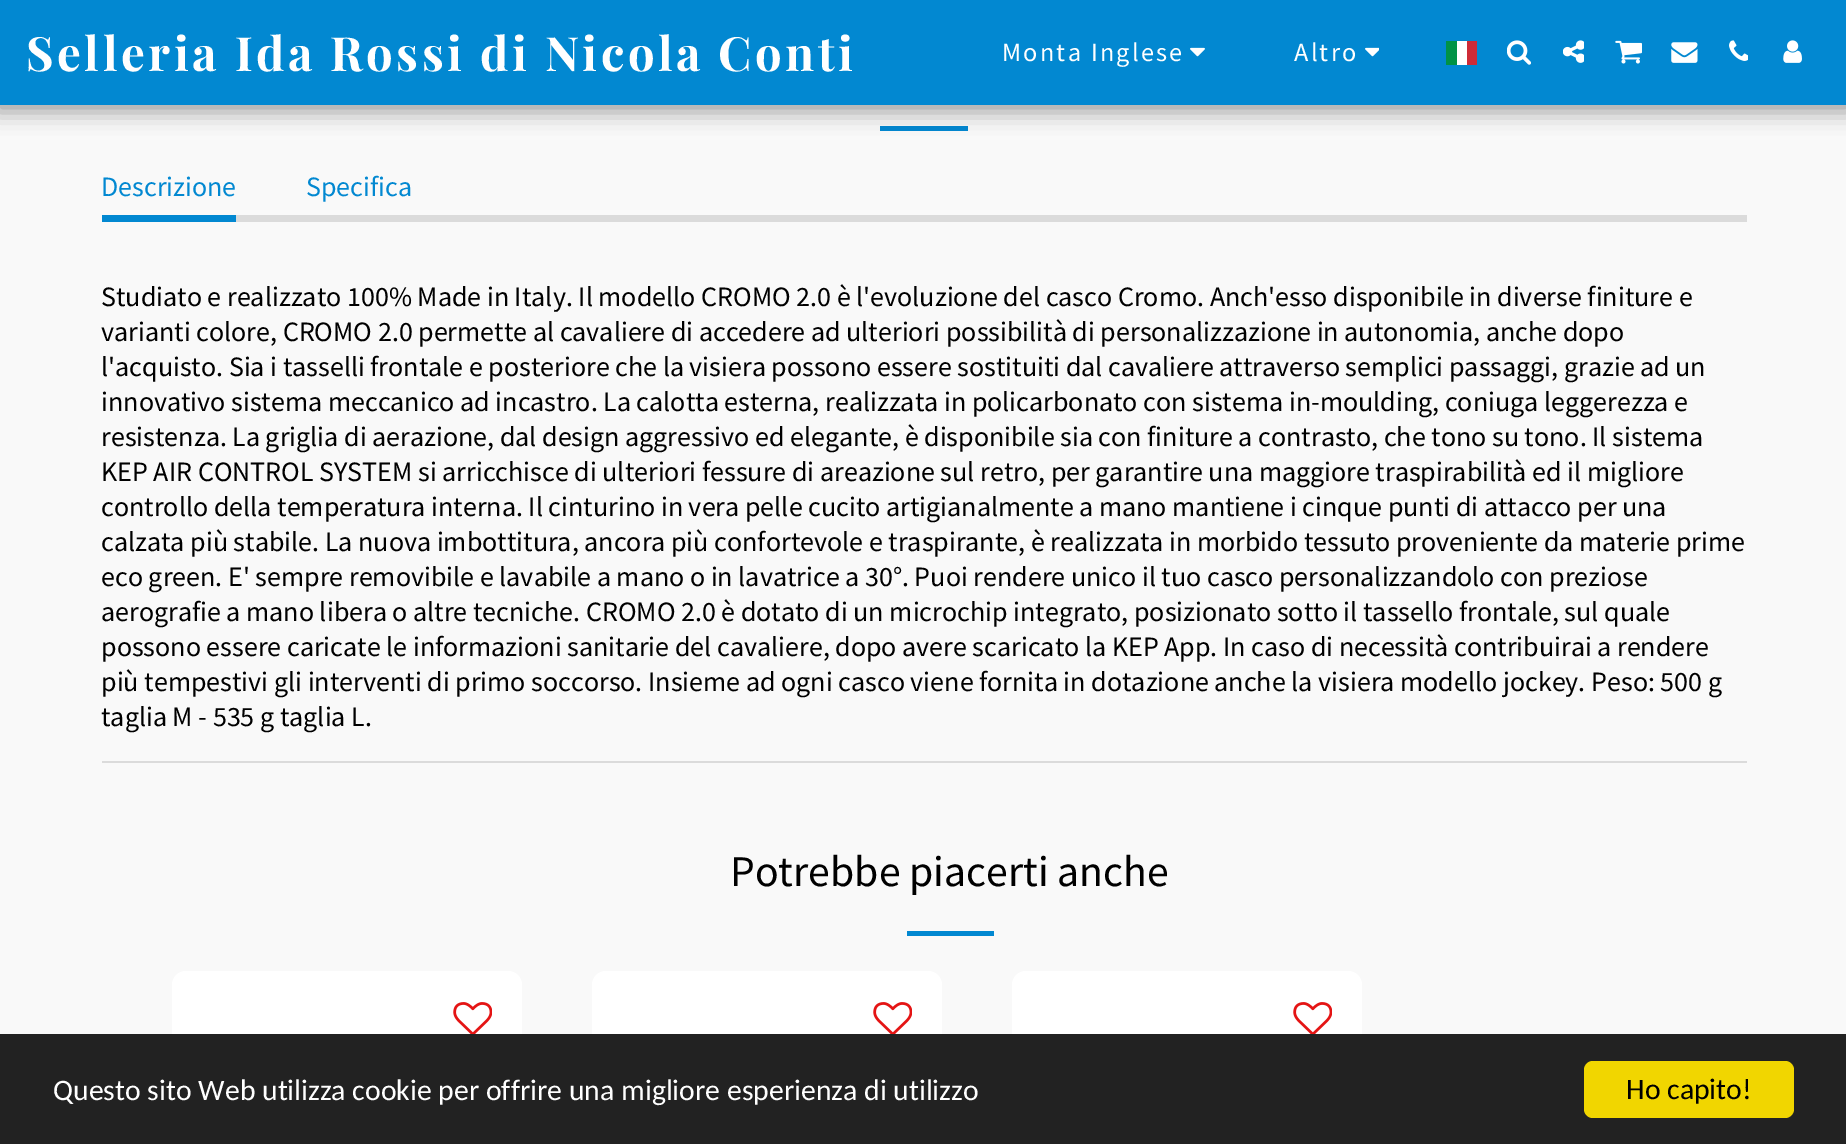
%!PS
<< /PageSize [1846 1144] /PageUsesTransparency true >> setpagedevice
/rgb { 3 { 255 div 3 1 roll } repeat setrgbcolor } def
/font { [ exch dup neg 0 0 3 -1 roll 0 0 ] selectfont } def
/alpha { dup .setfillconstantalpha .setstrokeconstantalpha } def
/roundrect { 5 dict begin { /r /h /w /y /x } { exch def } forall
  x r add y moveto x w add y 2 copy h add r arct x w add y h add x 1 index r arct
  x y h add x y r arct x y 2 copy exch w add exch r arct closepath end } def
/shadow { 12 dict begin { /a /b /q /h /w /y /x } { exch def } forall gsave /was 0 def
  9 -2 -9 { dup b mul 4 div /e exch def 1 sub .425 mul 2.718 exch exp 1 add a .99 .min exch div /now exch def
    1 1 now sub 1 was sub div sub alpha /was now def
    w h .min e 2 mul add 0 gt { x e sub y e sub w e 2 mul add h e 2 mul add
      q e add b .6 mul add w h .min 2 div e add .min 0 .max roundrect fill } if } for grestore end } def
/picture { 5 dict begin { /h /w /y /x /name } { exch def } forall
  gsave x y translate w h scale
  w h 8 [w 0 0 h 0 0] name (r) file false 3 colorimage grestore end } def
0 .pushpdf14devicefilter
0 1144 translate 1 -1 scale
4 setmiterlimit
249 249 249 rgb
0 0 1846 1144 rectfill
2 136 209 rgb
880 126 88 5 rectfill
0 0 0 rgb
-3 0 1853 112 0 10.5 0.35 shadow
2 136 209 rgb
0 0 1846 105 rectfill
(img/1.rgb) 1190 47 15 10 picture
(img/2.rgb) 1365 47 14 10 picture
[
  [1457 41 10 24 255 255 255]
  [1446 41 11 24 0 146 70]
  [1467 41 10 24 206 43 55]
] { aload pop rgb rectfill } forall
(img/3.rgb) 1507 40 24 25 picture
(img/4.rgb) 1563 40 21 23 picture
(img/5.rgb) 1615 40 27 24 picture
(img/6.rgb) 1671 42 27 21 picture
(img/7.rgb) 1729 40 19 21 picture
(img/8.rgb) 1783 40 19 23 picture
[
  [236 215 1511 7 219 219 219]
  [102 215 134 7 2 136 209]
  [102 761 1645 2 219 219 219]
  [907 931 87 5 2 136 209]
] { aload pop rgb rectfill } forall
255 255 255 rgb
172 971 350 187 14 roundrect fill
(img/9.rgb) 453 1002 39 32 picture
592 971 350 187 14 roundrect fill
(img/9.rgb) 873 1002 39 32 picture
1012 971 350 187 14 roundrect fill
(img/9.rgb) 1293 1002 39 32 picture
34 34 34 rgb
0 1034 1846 110 rectfill
241 214 0 rgb
1584 1061 210 57 9 roundrect fill
/PlayfairDisplay-Bold 47.25 font
255 255 255 rgb
26 71 moveto 3.5 0 (Selleria Ida Rossi di Nicola Conti) ashow
/SourceSansPro-Regular 26.25 font
1002 61 moveto 2.25 0 (Monta Inglese) ashow
1294 61 moveto 2.25 0 (Altro) ashow
/SourceSansPro-Regular 28 font
2 136 209 rgb
101 196 moveto (Descrizione) show
306 196 moveto (Specifica) show
0 0 0 rgb
[
  [(Studiato e realizzato 100% Made in Italy. Il modello CROMO 2.0 è l'evoluzione del casco Cromo. Anch'esso disponibile in diverse finiture e) 101 306]
  [(varianti colore, CROMO 2.0 permette al cavaliere di accedere ad ulteriori possibilità di personalizzazione in autonomia, anche dopo) 101 341]
  [(l'acquisto. Sia i tasselli frontale e posteriore che la visiera possono essere sostituiti dal cavaliere attraverso semplici passaggi, grazie ad un) 101 376]
  [(innovativo sistema meccanico ad incastro. La calotta esterna, realizzata in policarbonato con sistema in-moulding, coniuga leggerezza e) 101 411]
  [(resistenza. La griglia di aerazione, dal design aggressivo ed elegante, è disponibile sia con finiture a contrasto, che tono su tono. Il sistema) 101 446]
  [(KEP AIR CONTROL SYSTEM si arricchisce di ulteriori fessure di areazione sul retro, per garantire una maggiore traspirabilità ed il migliore) 101 481]
  [(controllo della temperatura interna. Il cinturino in vera pelle cucito artigianalmente a mano mantiene i cinque punti di attacco per una) 101 516]
  [(calzata più stabile. La nuova imbottitura, ancora più confortevole e traspirante, è realizzata in morbido tessuto proveniente da materie prime) 101 551]
  [(eco green. E' sempre removibile e lavabile a mano o in lavatrice a 30°. Puoi rendere unico il tuo casco personalizzandolo con preziose) 101 586]
  [(aerografie a mano libera o altre tecniche. CROMO 2.0 è dotato di un microchip integrato, posizionato sotto il tassello frontale, sul quale) 101 621]
  [(possono essere caricate le informazioni sanitarie del cavaliere, dopo avere scaricato la KEP App. In caso di necessità contribuirai a rendere) 101 656]
  [(più tempestivi gli interventi di primo soccorso. Insieme ad ogni casco viene fornita in dotazione anche la visiera modello jockey. Peso: 500 g) 101 691]
  [(taglia M - 535 g taglia L.) 101 726]
] { aload pop moveto show } forall
/SourceSansPro-Regular 43.75 font
730 886 moveto (Potrebbe piacerti anche) show
/Carlito-Regular 29.75 font
255 255 255 rgb
53 1100 moveto (Questo sito Web utilizza cookie per offrire una migliore esperienza di utilizzo) show
0 0 0 rgb
1626 1099 moveto (Ho capito!) show
.poppdf14devicefilter showpage
